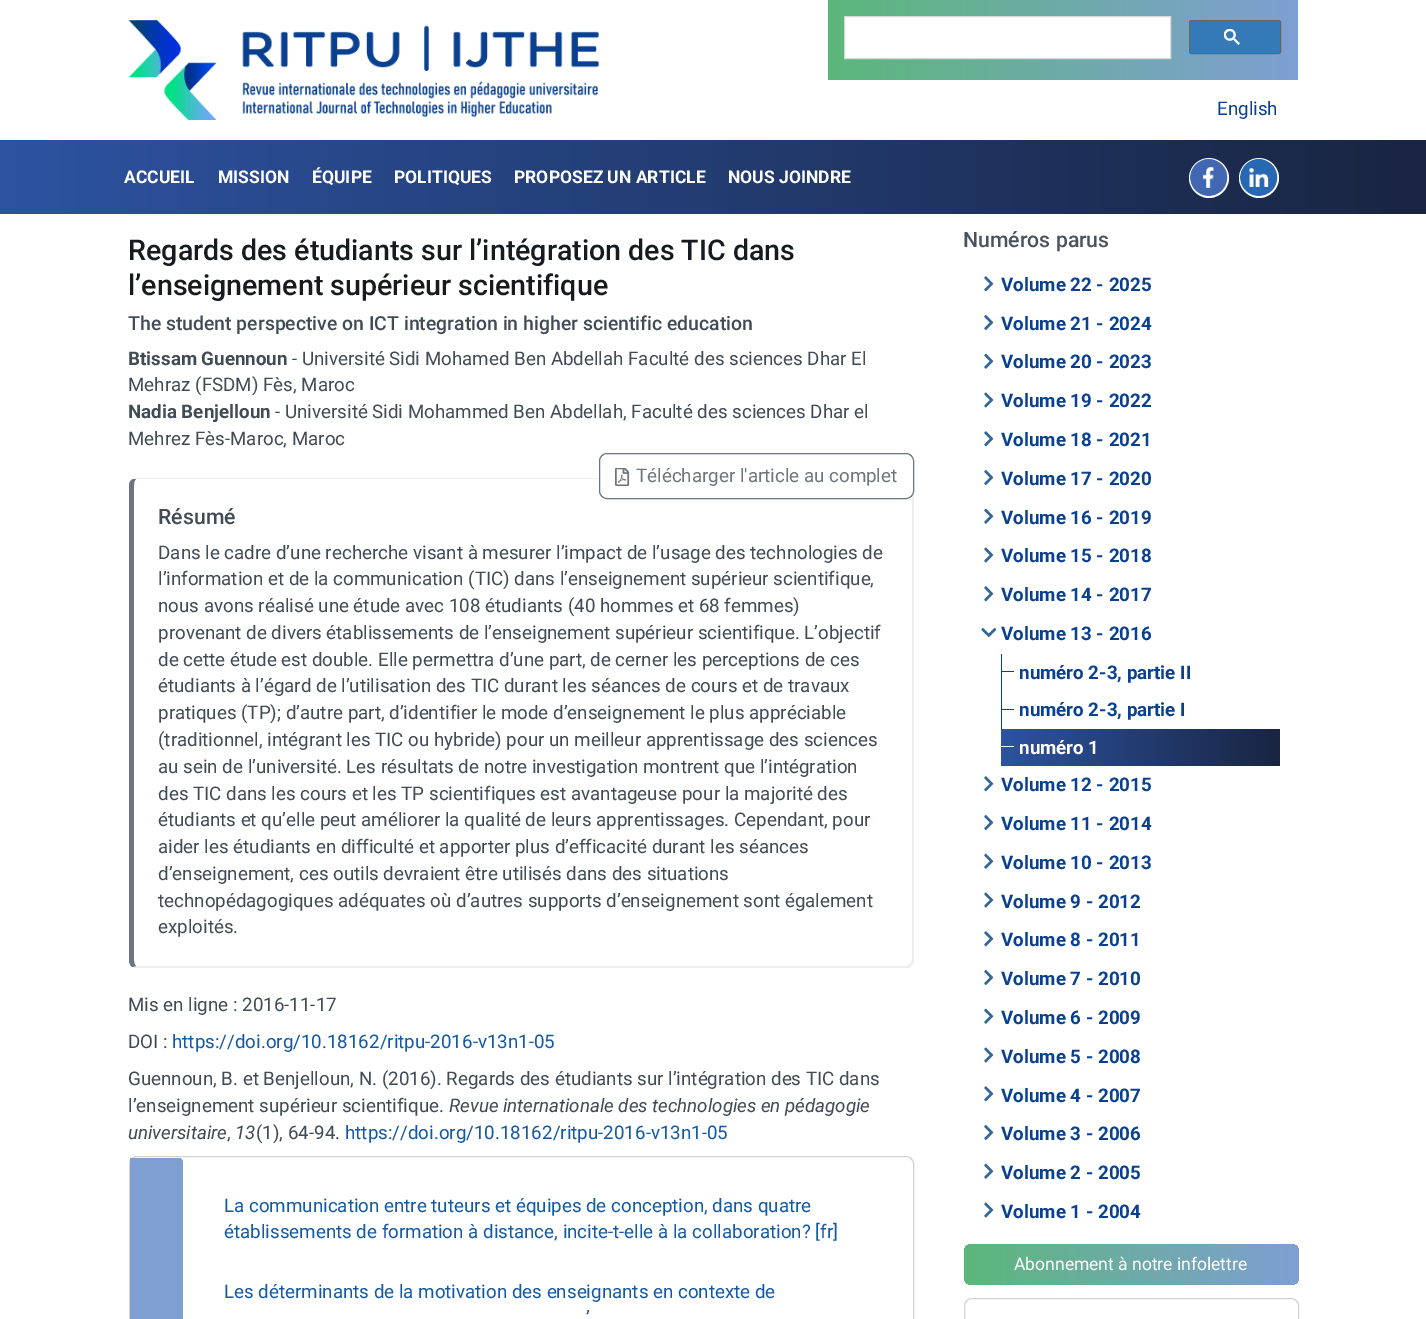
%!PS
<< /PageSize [1426 1319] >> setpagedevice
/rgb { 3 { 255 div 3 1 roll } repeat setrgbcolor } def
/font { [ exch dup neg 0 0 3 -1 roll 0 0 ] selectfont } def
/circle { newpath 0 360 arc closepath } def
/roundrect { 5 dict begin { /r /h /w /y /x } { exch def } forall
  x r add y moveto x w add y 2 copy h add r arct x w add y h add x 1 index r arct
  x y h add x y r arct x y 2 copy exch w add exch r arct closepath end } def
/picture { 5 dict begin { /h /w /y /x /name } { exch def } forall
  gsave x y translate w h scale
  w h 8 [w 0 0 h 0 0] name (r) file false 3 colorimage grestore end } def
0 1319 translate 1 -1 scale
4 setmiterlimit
255 255 255 rgb
0 0 1426 1319 rectfill
(img/1.rgb) 128 20 471 100 picture
gsave 828 0 moveto 1298 0 lineto 1298 80 lineto 828 80 lineto closepath clip newpath
<< /ShadingType 2 /ColorSpace /DeviceRGB /Coords [828 40 1298 40] /Extend [true true] /Function << /FunctionType 2 /Domain [0 1] /C0 [0.361 0.718 0.482] /C1 [0.498 0.624 0.827] /N 1 >> >> shfill grestore
844.5 16.5 moveto 1170.5 16.5 lineto 1170.5 58.5 lineto 844.5 58.5 lineto closepath gsave fill grestore
217 217 217 rgb
stroke
51 122 183 rgb
1189.5 20.5 91 33 2 roundrect gsave fill grestore
102 102 102 rgb
stroke
(img/2.rgb) 1224 29 16 16 picture
gsave 0 140 moveto 1426 140 lineto 1426 214 lineto 0 214 lineto closepath clip newpath
<< /ShadingType 2 /ColorSpace /DeviceRGB /Coords [0 177 1426 177] /Extend [true true] /Function << /FunctionType 2 /Domain [0 1] /C0 [0.176 0.325 0.631] /C1 [0.098 0.145 0.255] /N 1 >> >> shfill grestore
255 255 255 rgb
1209 178 20 circle fill
(img/3.rgb) 1190 158 38 39 picture
1259 178 20 circle fill
(img/4.rgb) 1240 158 38 39 picture
238 238 238 rgb
136 478 moveto 133 479 lineto 136 479 lineto 906 479 lineto 908 479 909 480 910 481 curveto 911 480 lineto 910 479 908 478 906 478 curveto closepath fill
911 480 moveto 914 483 lineto 914 962 lineto 912 965 lineto 910 964 lineto 911 963 912 962 912 960 curveto 912 485 lineto 912 483 911 482 910 481 curveto closepath fill
255 255 255 rgb
599.5 453.5 314 45 7.5 roundrect gsave fill grestore
108 117 125 rgb
stroke
(img/5.rgb) 615 468 15 18 picture
238 238 238 rgb
134 968 moveto 132 967 lineto 136 966 lineto 906 966 lineto 908 966 909 965 910 964 curveto 912 965 lineto 909 968 lineto closepath fill
108 117 125 rgb
133 479 moveto 131 480 129 482 129 485 curveto 129 960 lineto 129 963 130 965 132 967 curveto 136 966 lineto 135 965 134 963 134 960 curveto 134 485 lineto 134 482 135 480 136 479 curveto closepath fill
210 210 210 rgb
129.5 1156.5 784 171 7.5 roundrect stroke
127 159 211 rgb
130 1158 moveto 179 1158 lineto 181 1158 183 1160 183 1162 curveto 183 1319 lineto 183 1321 181 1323 179 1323 curveto 134 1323 lineto 132 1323 130 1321 130 1319 curveto closepath fill
130 1158 moveto 179 1158 lineto 181 1158 182 1159 182 1161 curveto 182 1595 lineto 182 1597 181 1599 179 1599 curveto 134 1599 lineto 132 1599 130 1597 130 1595 curveto closepath 130 1158 moveto 179 1158 lineto 180 1158 181 1159 181 1161 curveto 181 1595 lineto 181 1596 180 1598 179 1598 curveto 134 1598 lineto 132 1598 130 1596 130 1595 curveto closepath eofill
(img/6.rgb) 984 276 10 16 picture
(img/7.rgb) 984 315 10 15 picture
(img/8.rgb) 984 353 10 16 picture
(img/9.rgb) 984 392 10 16 picture
(img/6.rgb) 984 431 10 16 picture
(img/7.rgb) 984 470 10 15 picture
(img/10.rgb) 984 508 10 16 picture
(img/9.rgb) 984 547 10 16 picture
(img/6.rgb) 984 586 10 16 picture
(img/11.rgb) 981 628 16 9 picture
[
  [1001 654 1 75 9 64 144]
  [1001 671 13 1 9 64 144]
  [1001 709 13 1 9 64 144]
] { aload pop rgb rectfill } forall
gsave 1001 729 moveto 1280 729 lineto 1280 766 lineto 1001 766 lineto closepath clip newpath
<< /ShadingType 2 /ColorSpace /DeviceRGB /Coords [1001 748 1280 748] /Extend [true true] /Function << /FunctionType 2 /Domain [0 1] /C0 [0.176 0.325 0.631] /C1 [0.098 0.145 0.255] /N 1 >> >> shfill grestore
255 255 255 rgb
1001 746 13 1 rectfill
(img/6.rgb) 984 776 10 16 picture
(img/7.rgb) 984 815 10 15 picture
(img/8.rgb) 984 853 10 16 picture
(img/9.rgb) 984 892 10 16 picture
(img/6.rgb) 984 931 10 16 picture
(img/7.rgb) 984 970 10 15 picture
(img/12.rgb) 984 1008 10 16 picture
(img/9.rgb) 984 1047 10 16 picture
(img/6.rgb) 984 1086 10 16 picture
(img/7.rgb) 984 1125 10 15 picture
(img/8.rgb) 984 1163 10 16 picture
(img/9.rgb) 984 1202 10 16 picture
gsave 964 1244 335 41 8 roundrect clip newpath
<< /ShadingType 2 /ColorSpace /DeviceRGB /Coords [964 1264 1299 1264] /Extend [true true] /Function << /FunctionType 2 /Domain [0 1] /C0 [0.361 0.718 0.482] /C1 [0.498 0.624 0.827] /N 1 >> >> shfill grestore
210 210 210 rgb
964.5 1298.5 334 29 7.5 roundrect stroke
/Roboto-Regular 18.75 font
9 64 144 rgb
1217 115 moveto (English) show
/Roboto-Bold 17.5 font
255 255 255 rgb
[
  [(ACCUEIL) 124 183]
  [(MISSION) 218 183]
  [(ÉQUIPE) 312 183]
  [(POLITIQUES) 394 183]
  [(PROPOSEZ UN ARTICLE) 514 183]
  [(NOUS JOINDRE) 728 183]
] { aload pop moveto show } forall
/Roboto-Medium 28.6 font
23 27 31 rgb
128 260 moveto (Regards des étudiants sur l’intégration des TIC dans) show
128 295 moveto (l’enseignement supérieur scientifique) show
/Roboto-Medium 19.4 font
64 75 85 rgb
128 330 moveto (The student perspective on ICT integration in higher scientific education) show
/Roboto-Bold 18.75 font
128 365 moveto (Btissam Guennoun) show
/Roboto-Regular 18.75 font
292 365 moveto (- Université Sidi Mohamed Ben Abdellah Faculté des sciences Dhar El) show
128 391 moveto (Mehraz \(FSDM\) Fès, Maroc) show
/Roboto-Bold 18.75 font
128 418 moveto (Nadia Benjelloun) show
/Roboto-Regular 18.75 font
275 418 moveto (- Université Sidi Mohammed Ben Abdellah, Faculté des sciences Dhar el) show
128 445 moveto (Mehrez Fès-Maroc, Maroc) show
108 117 125 rgb
636 482 moveto (Télécharger l'article au complet) show
/Roboto-Medium 21.25 font
64 75 85 rgb
158 524 moveto (Résumé) show
/Roboto-Regular 18.75 font
[
  [(Dans le cadre d’une recherche visant à mesurer l’impact de l’usage des technologies de) 158 559]
  [(l’information et de la communication \(TIC\) dans l’enseignement supérieur scientifique,) 158 585]
  [(nous avons réalisé une étude avec 108 étudiants \(40 hommes et 68 femmes\)) 158 612]
  [(provenant de divers établissements de l’enseignement supérieur scientifique. L’objectif) 158 639]
  [(de cette étude est double. Elle permettra d’une part, de cerner les perceptions de ces) 158 666]
  [(étudiants à l’égard de l’utilisation des TIC durant les séances de cours et de travaux) 158 692]
  [(pratiques \(TP\); d’autre part, d’identifier le mode d’enseignement le plus appréciable) 158 719]
  [(\(traditionnel, intégrant les TIC ou hybride\) pour un meilleur apprentissage des sciences) 158 746]
  [(au sein de l’université. Les résultats de notre investigation montrent que l’intégration) 158 773]
  [(des TIC dans les cours et les TP scientifiques est avantageuse pour la majorité des) 158 800]
  [(étudiants et qu’elle peut améliorer la qualité de leurs apprentissages. Cependant, pour) 158 826]
  [(aider les étudiants en difficulté et apporter plus d’efficacité durant les séances) 158 853]
  [(d’enseignement, ces outils devraient être utilisés dans des situations) 158 880]
  [(technopédagogiques adéquates où d’autres supports d’enseignement sont également) 158 907]
  [(exploités.) 158 933]
  [(Mis en ligne : 2016-11-17) 128 1011]
  [(DOI :) 128 1048]
] { aload pop moveto show } forall
18 89 166 rgb
172 1048 moveto (https://doi.org/10.18162/ritpu-2016-v13n1-05) show
64 75 85 rgb
128 1085 moveto (Guennoun, B. et Benjelloun, N. \(2016\). Regards des étudiants sur l’intégration des TIC dans) show
128 1112 moveto (l’enseignement supérieur scientifique.) show
/Roboto-Italic 18.75 font
449 1112 moveto (Revue internationale des technologies en pédagogie) show
128 1139 moveto (universitaire) show
/Roboto-Regular 18.75 font
227 1139 moveto (,) show
/Roboto-Italic 18.75 font
235 1139 moveto (13) show
/Roboto-Regular 18.75 font
256 1139 moveto (\(1\), 64-94.) show
18 89 166 rgb
[
  [(https://doi.org/10.18162/ritpu-2016-v13n1-05) 345 1139]
  [(La communication entre tuteurs et équipes de conception, dans quatre) 224 1212]
  [(établissements de formation à distance, incite-t-elle à la collaboration? [fr]) 224 1238]
  [(Les déterminants de la motivation des enseignants en contexte de) 224 1298]
  [(’) 586 1324]
] { aload pop moveto show } forall
/Roboto-Medium 21.25 font
72 83 95 rgb
963 247 moveto (Numéros parus) show
/Roboto-Bold 18.75 font
9 64 144 rgb
[
  [(Volume 22 - 2025) 1001 291]
  [(Volume 21 - 2024) 1001 330]
  [(Volume 20 - 2023) 1001 368]
  [(Volume 19 - 2022) 1001 407]
  [(Volume 18 - 2021) 1001 446]
  [(Volume 17 - 2020) 1001 485]
  [(Volume 16 - 2019) 1001 524]
  [(Volume 15 - 2018) 1001 562]
  [(Volume 14 - 2017) 1001 601]
  [(Volume 13 - 2016) 1001 640]
  [(numéro 2-3, partie II) 1019 679]
  [(numéro 2-3, partie I) 1019 716]
] { aload pop moveto show } forall
255 255 255 rgb
1019 754 moveto (numéro 1) show
9 64 144 rgb
[
  [(Volume 12 - 2015) 1001 791]
  [(Volume 11 - 2014) 1001 830]
  [(Volume 10 - 2013) 1001 869]
  [(Volume 9 - 2012) 1001 908]
  [(Volume 8 - 2011) 1001 946]
  [(Volume 7 - 2010) 1001 985]
  [(Volume 6 - 2009) 1001 1024]
  [(Volume 5 - 2008) 1001 1063]
  [(Volume 4 - 2007) 1001 1102]
  [(Volume 3 - 2006) 1001 1140]
  [(Volume 2 - 2005) 1001 1179]
  [(Volume 1 - 2004) 1001 1218]
] { aload pop moveto show } forall
/Roboto-Regular 17.5 font
255 255 255 rgb
1014 1270 moveto (Abonnement à notre infolettre) show
showpage
